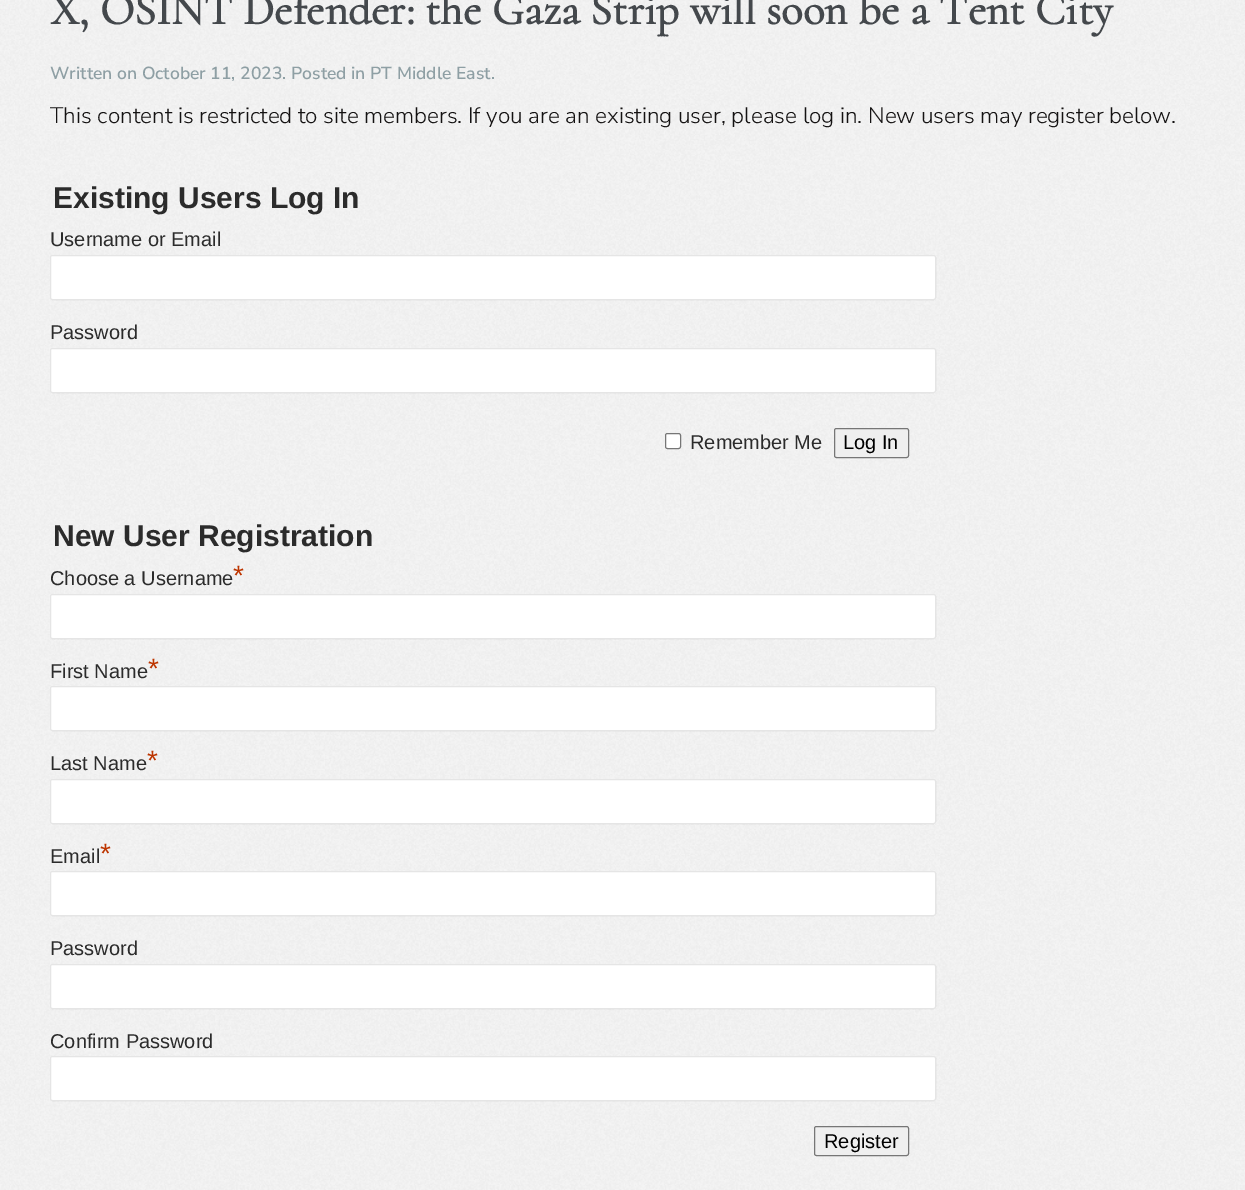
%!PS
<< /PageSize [1245 1190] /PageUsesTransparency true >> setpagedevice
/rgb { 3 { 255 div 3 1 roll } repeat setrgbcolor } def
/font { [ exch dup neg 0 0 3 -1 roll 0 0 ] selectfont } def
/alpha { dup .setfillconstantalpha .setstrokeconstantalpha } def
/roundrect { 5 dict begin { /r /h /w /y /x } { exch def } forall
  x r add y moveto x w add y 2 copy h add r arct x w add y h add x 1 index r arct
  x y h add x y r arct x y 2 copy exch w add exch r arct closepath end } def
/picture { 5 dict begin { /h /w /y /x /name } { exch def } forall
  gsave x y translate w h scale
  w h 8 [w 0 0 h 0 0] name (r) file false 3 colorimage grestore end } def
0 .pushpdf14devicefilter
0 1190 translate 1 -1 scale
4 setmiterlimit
245 245 245 rgb
0 0 1245 1190 rectfill
(img/1.rgb) 0 0 1245 1190 picture
255 255 255 rgb
50 255 886 45 2.5 roundrect fill
0.1 alpha
0 0 0 rgb
50.5 255.5 885 44 2 roundrect stroke
1 alpha
255 255 255 rgb
50 348 886 45 2.5 roundrect fill
0.1 alpha
0 0 0 rgb
50.5 348.5 885 44 2 roundrect stroke
1 alpha
255 255 255 rgb
665.5 433.5 15 15 2 roundrect gsave fill grestore
118 118 118 rgb
stroke
239 239 239 rgb
834.5 428.5 74 29 2 roundrect gsave fill grestore
118 118 118 rgb
stroke
255 255 255 rgb
50 594 886 45 2.5 roundrect fill
0.1 alpha
0 0 0 rgb
50.5 594.5 885 44 2 roundrect stroke
1 alpha
255 255 255 rgb
50 686 886 45 2.5 roundrect fill
0.1 alpha
0 0 0 rgb
50.5 686.5 885 44 2 roundrect stroke
1 alpha
255 255 255 rgb
50 779 886 45 2.5 roundrect fill
0.1 alpha
0 0 0 rgb
50.5 779.5 885 44 2 roundrect stroke
1 alpha
255 255 255 rgb
50 871 886 45 2.5 roundrect fill
0.1 alpha
0 0 0 rgb
50.5 871.5 885 44 2 roundrect stroke
1 alpha
255 255 255 rgb
50 964 886 45 2.5 roundrect fill
0.1 alpha
0 0 0 rgb
50.5 964.5 885 44 2 roundrect stroke
1 alpha
255 255 255 rgb
50 1056 886 45 2.5 roundrect fill
0.1 alpha
0 0 0 rgb
50.5 1056.5 885 44 2 roundrect stroke
1 alpha
239 239 239 rgb
814.5 1126.5 94 29 2 roundrect gsave fill grestore
118 118 118 rgb
stroke
/Cormorant-Bold 45 font
68 72 76 rgb
50 24 moveto (X, OSINT Defender: the Gaza Strip will soon be a Tent City) show
/NunitoSans-ExtraLight 17.5 font
142 159 164 rgb
50 79 moveto (Written on October 11, 2023. Posted in PT Middle East.) show
/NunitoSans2-ExtraLight 22.5 font
20 18 18 rgb
50 123 moveto (This content is restricted to site members. If you are an existing user, please log in. New users may register below.) show
/LiberationSans-Bold 30 font
43 43 43 rgb
53 208 moveto (Existing Users Log In) show
/LiberationSans-Regular 20 font
[
  [(Username or Email) 50 246]
  [(Password) 50 339]
  [(Remember Me) 690 449]
] { aload pop moveto show } forall
0 0 0 rgb
843 449 moveto (Log In) show
/LiberationSans-Bold 30 font
43 43 43 rgb
53 546 moveto (New User Registration) show
/LiberationSans-Regular 20 font
50 585 moveto (Choose a Username) show
/LiberationSans-Regular 28 font
189 53 0 rgb
233 585 moveto (*) show
/LiberationSans-Regular 20 font
43 43 43 rgb
50 678 moveto (First Name) show
/LiberationSans-Regular 28 font
189 53 0 rgb
148 678 moveto (*) show
/LiberationSans-Regular 20 font
43 43 43 rgb
50 770 moveto (Last Name) show
/LiberationSans-Regular 28 font
189 53 0 rgb
147 770 moveto (*) show
/LiberationSans-Regular 20 font
43 43 43 rgb
50 863 moveto (Email) show
/LiberationSans-Regular 28 font
189 53 0 rgb
100 863 moveto (*) show
/LiberationSans-Regular 20 font
43 43 43 rgb
50 955 moveto (Password) show
50 1048 moveto (Confirm Password) show
0 0 0 rgb
824 1148 moveto (Register) show
.poppdf14devicefilter showpage
